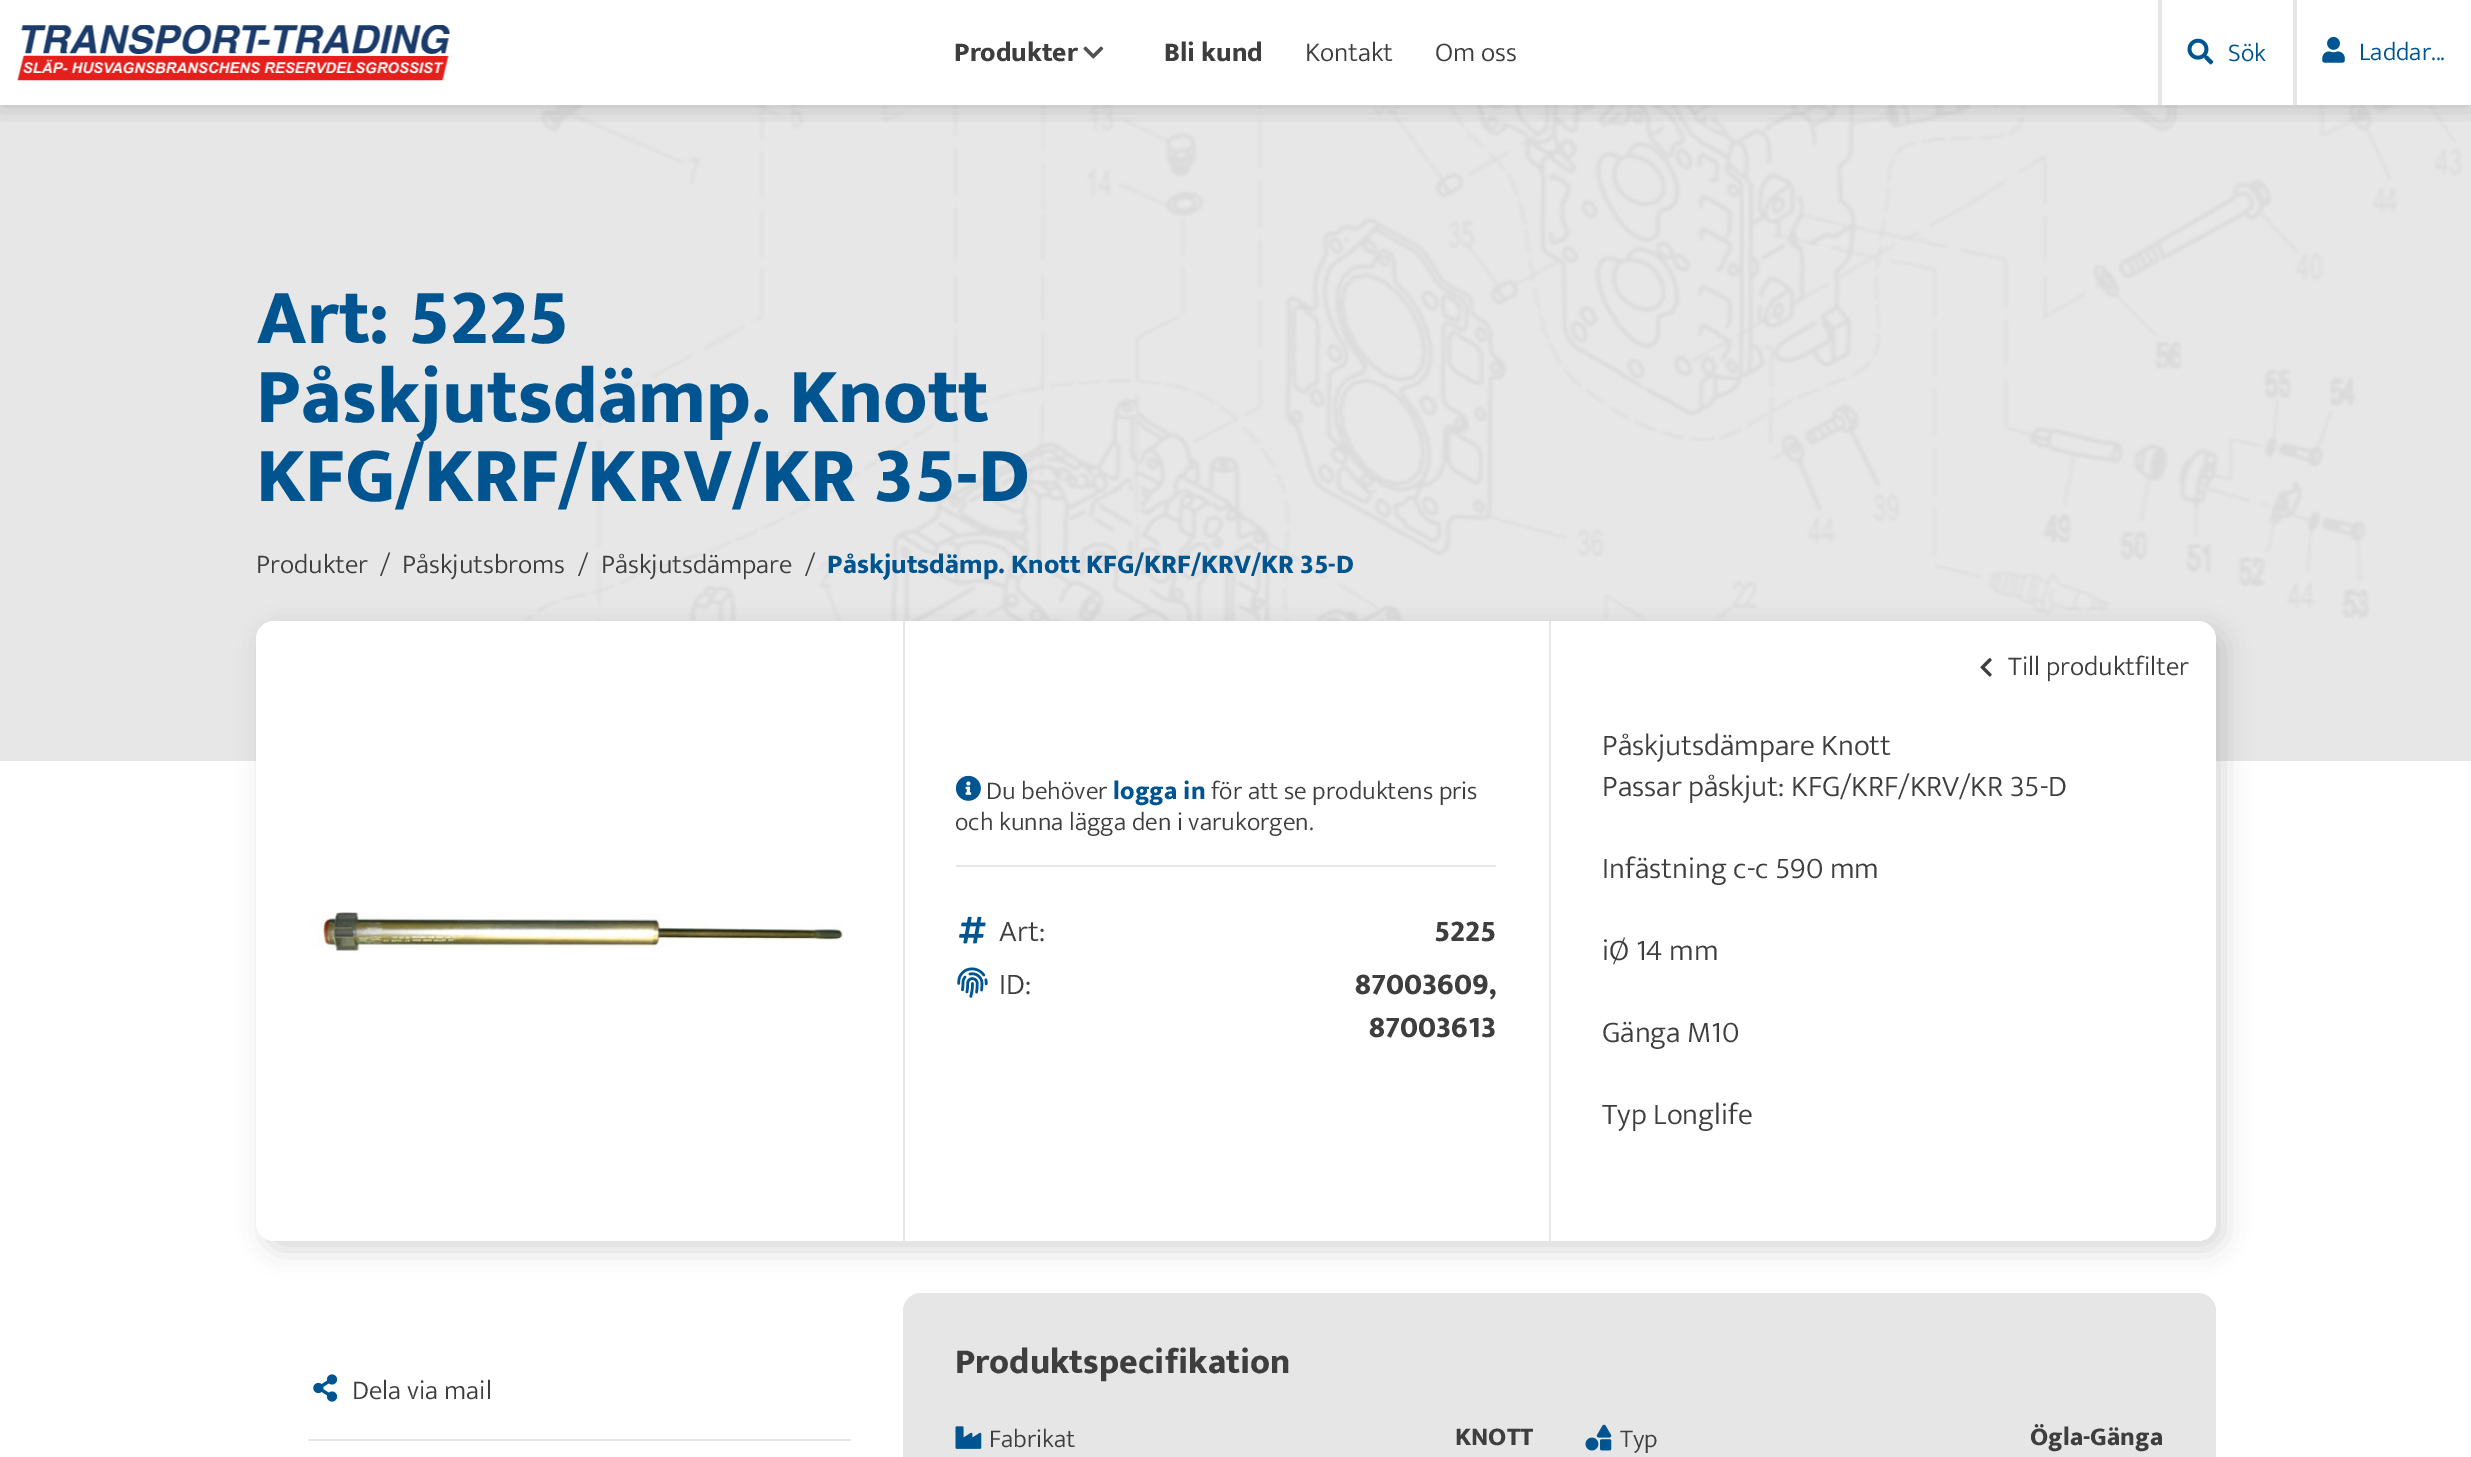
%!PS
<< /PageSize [2471 1457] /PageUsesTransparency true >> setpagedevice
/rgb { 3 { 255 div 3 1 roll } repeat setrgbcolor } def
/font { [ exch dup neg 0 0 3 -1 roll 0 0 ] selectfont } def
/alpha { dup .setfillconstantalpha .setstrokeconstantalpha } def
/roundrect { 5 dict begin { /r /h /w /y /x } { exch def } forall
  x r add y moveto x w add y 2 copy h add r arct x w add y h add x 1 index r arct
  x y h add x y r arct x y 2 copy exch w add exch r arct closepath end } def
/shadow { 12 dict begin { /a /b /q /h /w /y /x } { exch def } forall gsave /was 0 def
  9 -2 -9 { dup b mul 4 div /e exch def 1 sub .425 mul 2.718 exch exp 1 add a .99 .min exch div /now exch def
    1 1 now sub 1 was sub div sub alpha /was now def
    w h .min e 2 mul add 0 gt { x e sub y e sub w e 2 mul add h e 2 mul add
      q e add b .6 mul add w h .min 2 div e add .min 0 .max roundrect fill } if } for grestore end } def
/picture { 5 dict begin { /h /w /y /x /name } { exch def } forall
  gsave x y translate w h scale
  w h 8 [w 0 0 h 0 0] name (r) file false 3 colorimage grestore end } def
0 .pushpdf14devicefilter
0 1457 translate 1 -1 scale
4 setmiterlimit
255 255 255 rgb
0 0 2471 1457 rectfill
231 231 231 rgb
0 105 2471 656 rectfill
(img/5.rgb) 521 105 1943 519 picture
gsave
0 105 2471 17 rectclip
0 0 0 rgb
0 0 2471 105 0 13 0.2 shadow
grestore
(img/1.rgb) 17 25 433 56 picture
(img/2.rgb) 1083 46 21 13 picture
230 230 230 rgb
2158 0 4 105 rectfill
(img/3.rgb) 2187 38 27 27 picture
2293 0 4 105 rectfill
(img/4.rgb) 2322 36 23 27 picture
0 0 0 rgb
264 630 1960 620 18 13 0.15 shadow
255 255 255 rgb
256 621 1960 620 18 roundrect fill
(img/6.rgb) 1980 658 12 19 picture
(img/7.rgb) 308 912 536 42 picture
230 230 230 rgb
903 621 2 620 rectfill
956 865 540 2 rectfill
(img/8.rgb) 955 775 26 26 picture
(img/9.rgb) 959 916 27 28 picture
(img/10.rgb) 957 967 31 31 picture
1549 621 2 620 rectfill
308 1439 543 2 rectfill
(img/11.rgb) 313 1374 25 28 picture
903 1293 1313 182 18 roundrect fill
(img/12.rgb) 955 1426 27 23 picture
(img/13.rgb) 1585 1424 27 27 picture
/Mukta-ExtraBold 27.25 font
62 62 62 rgb
954 61 moveto (Produkter) show
1164 61 moveto (Bli kund) show
/Mukta-Light 27.25 font
1305 61 moveto (Kontakt) show
1435 61 moveto (Om oss) show
/Mukta-Light 25.75 font
0 84 144 rgb
2228 61 moveto (Sök) show
2359 60 moveto (Laddar...) show
/Mukta-ExtraBold 78.9 font
[
  [(Art: 5225) 256 343]
  [(Påskjutsdämp. Knott) 256 422]
  [(KFG/KRF/KRV/KR 35-D) 256 501]
] { aload pop moveto show } forall
/Mukta-Light 27.25 font
62 62 62 rgb
[
  [(Produkter) 256 573]
  [(/) 380 573]
  [(Påskjutsbroms) 402 573]
  [(/) 578 573]
  [(Påskjutsdämpare) 601 573]
  [(/) 805 573]
] { aload pop moveto show } forall
/Mukta-ExtraBold 27.25 font
0 84 144 rgb
827 573 moveto (Påskjutsdämp. Knott KFG/KRF/KRV/KR 35-D) show
/Mukta-Light 27.25 font
62 62 62 rgb
2008 675 moveto (Till produktfilter) show
/Mukta-Light 25.75 font
986 799 moveto (Du behöver) show
/Mukta-ExtraBold 25.75 font
0 84 144 rgb
1113 799 moveto (logga in) show
/Mukta-Light 25.75 font
62 62 62 rgb
1211 799 moveto (för att se produktens pris) show
955 830 moveto (och kunna lägga den i varukorgen.) show
/Mukta-Light 30.3 font
999 941 moveto (Art:) show
/Mukta-ExtraBold 30.3 font
1434 941 moveto (5225) show
/Mukta-Light 30.3 font
999 994 moveto (ID:) show
/Mukta-ExtraBold 30.3 font
1355 994 moveto (87003609,) show
1369 1037 moveto (87003613) show
/Mukta-Light 30.3 font
[
  [(Påskjutsdämpare Knott) 1602 755]
  [(Passar påskjut: KFG/KRF/KRV/KR 35-D) 1602 796]
  [(Infästning c-c 590 mm) 1602 878]
  [(iØ 14 mm) 1602 960]
  [(Gänga M10) 1602 1042]
  [(Typ Longlife) 1602 1124]
] { aload pop moveto show } forall
/Mukta-Light 27.25 font
352 1399 moveto (Dela via mail) show
/Mukta-ExtraBold 35.5 font
955 1373 moveto (Produktspecifikation) show
/Mukta-Light 25.75 font
989 1447 moveto (Fabrikat) show
/Mukta-ExtraBold 25.75 font
1455 1445 moveto (KNOTT) show
/Mukta-Light 25.75 font
1620 1447 moveto (Typ) show
/Mukta-ExtraBold 25.75 font
2030 1445 moveto (Ögla-Gänga) show
.poppdf14devicefilter showpage
